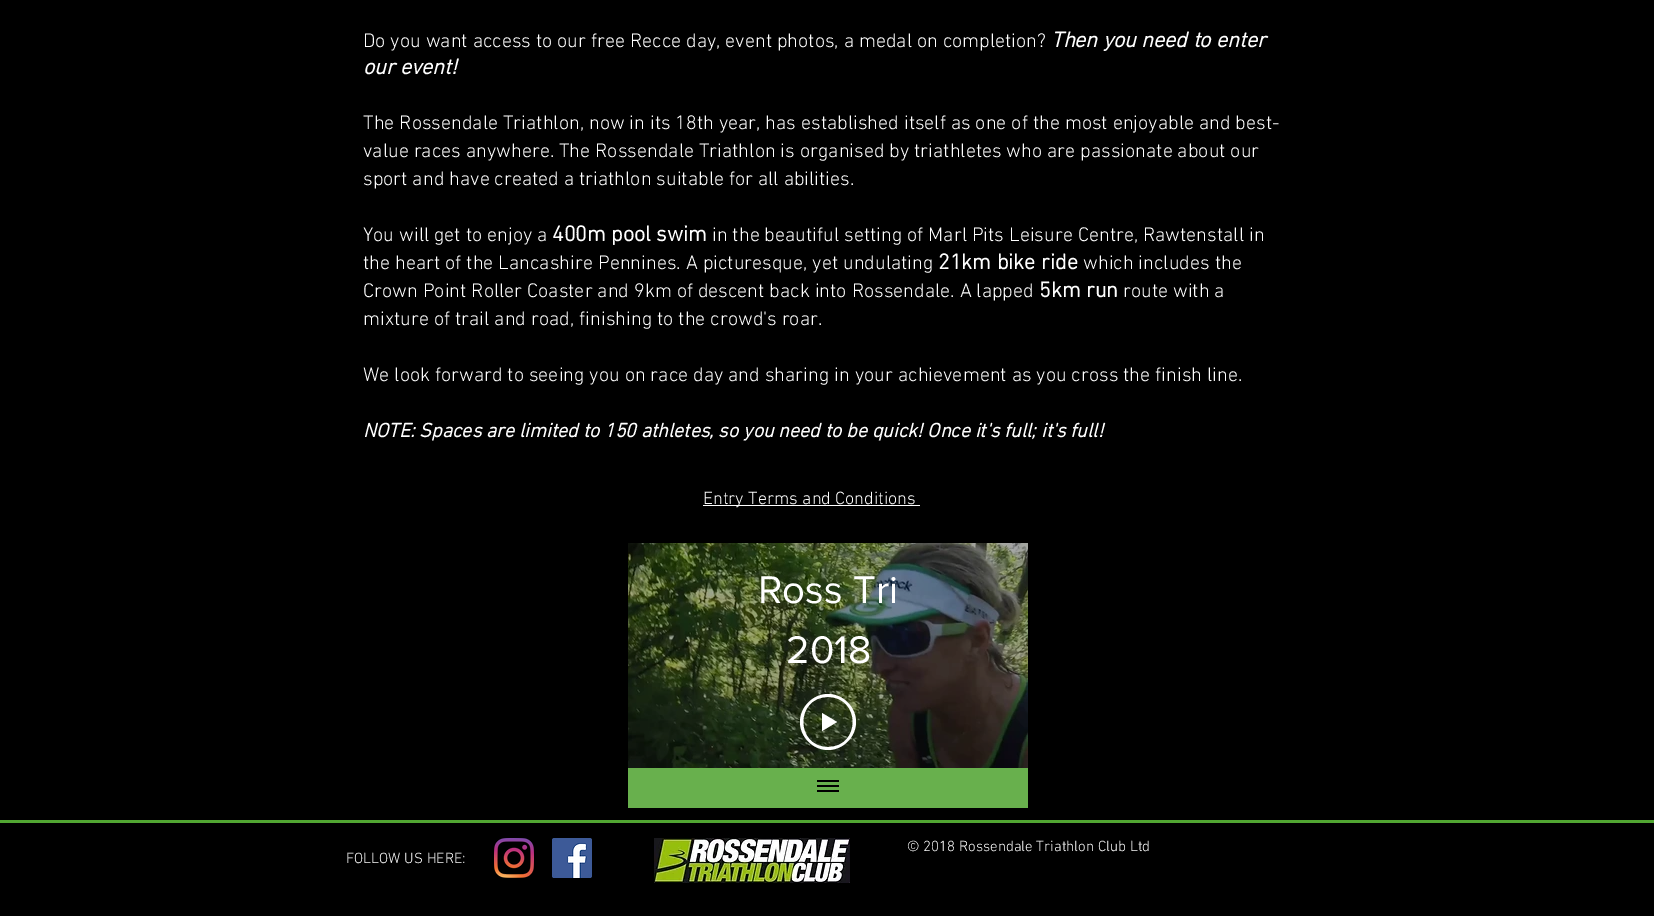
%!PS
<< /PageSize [1654 916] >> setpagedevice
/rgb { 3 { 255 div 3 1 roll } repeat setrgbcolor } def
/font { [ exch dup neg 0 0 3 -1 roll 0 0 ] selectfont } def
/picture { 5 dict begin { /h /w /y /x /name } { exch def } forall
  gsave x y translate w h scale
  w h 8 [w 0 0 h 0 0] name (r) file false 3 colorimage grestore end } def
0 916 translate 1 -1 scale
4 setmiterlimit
0 0 0 rgb
0 0 1654 916 rectfill
255 255 255 rgb
703 505 217 1 rectfill
(img/1.rgb) 628 543 400 225 picture
828 747 moveto 861 747 861 697 828 697 curveto 795 697 795 747 828 747 curveto closepath 828 750 moveto 813 750 800 737 800 722 curveto 800 707 813 694 828 694 curveto 843 694 856 707 856 722 curveto 856 737 843 750 828 750 curveto closepath eofill
837 722 moveto 822 731 lineto 822 713 lineto closepath eofill
104 176 77 rgb
628 768 400 40 rectfill
(img/2.rgb) 817 780 22 12 picture
81 166 50 rgb
0 820 1654 3 rectfill
(img/3.rgb) 494 838 40 40 picture
(img/4.rgb) 552 838 40 40 picture
(img/5.rgb) 654 838 196 45 picture
/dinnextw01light-Light 20 font
255 255 255 rgb
363 47 moveto (Do you want access to our free Recce day, event photos, a medal on completion?) show
/dinnextw01light-BoldItalic 22 font
1051 47 moveto (Then you need to enter) show
363 74 moveto (our event!) show
/dinnextw01light-Light 20 font
[
  [(The Rossendale Triathlon, now in its 18th year, has established itself as one of the most enjoyable and best-) 363 129]
  [(value races anywhere. The Rossendale Triathlon is organised by triathletes who are passionate about our) 363 157]
  [(sport and have created a triathlon suitable for all abilities.) 363 185]
  [(You will get to enjoy a) 363 241]
] { aload pop moveto show } forall
/dinnextw01light-Bold 22 font
552 241 moveto (400m pool swim) show
/dinnextw01light-Light 20 font
712 241 moveto (in the beautiful setting of Marl Pits Leisure Centre, Rawtenstall in) show
363 269 moveto (the heart of the Lancashire Pennines. A picturesque, yet undulating) show
/dinnextw01light-Bold 22 font
938 269 moveto (21km bike ride) show
/dinnextw01light-Light 20 font
1083 269 moveto (which includes the) show
363 297 moveto (Crown Point Roller Coaster and 9km of descent back into Rossendale. A lapped) show
/dinnextw01light-Bold 22 font
1039 297 moveto (5km run) show
/dinnextw01light-Light 20 font
[
  [(route with a) 1123 297]
  [(mixture of trail and road, finishing to the crowd's roar.) 363 325]
  [(We look forward to seeing you on race day and sharing in your achievement as you cross the finish line.) 363 381]
] { aload pop moveto show } forall
/dinnextw01light-BoldItalic 20 font
363 437 moveto (NOTE: Spaces are limited to 150 athletes, so you need to be quick! Once it's full; it's full!) show
/dinnextw01light-Light 18 font
703 504 moveto (Entry Terms and Conditions) show
/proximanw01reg-Regular 40 font
758 603 moveto (Ross Tri) show
786 663 moveto (2018) show
/dinnextw01light-Light 15 font
907 851 moveto (© 2018 Rossendale Triathlon Club Ltd) show
346 863 moveto (FOLLOW US HERE:) show
showpage
